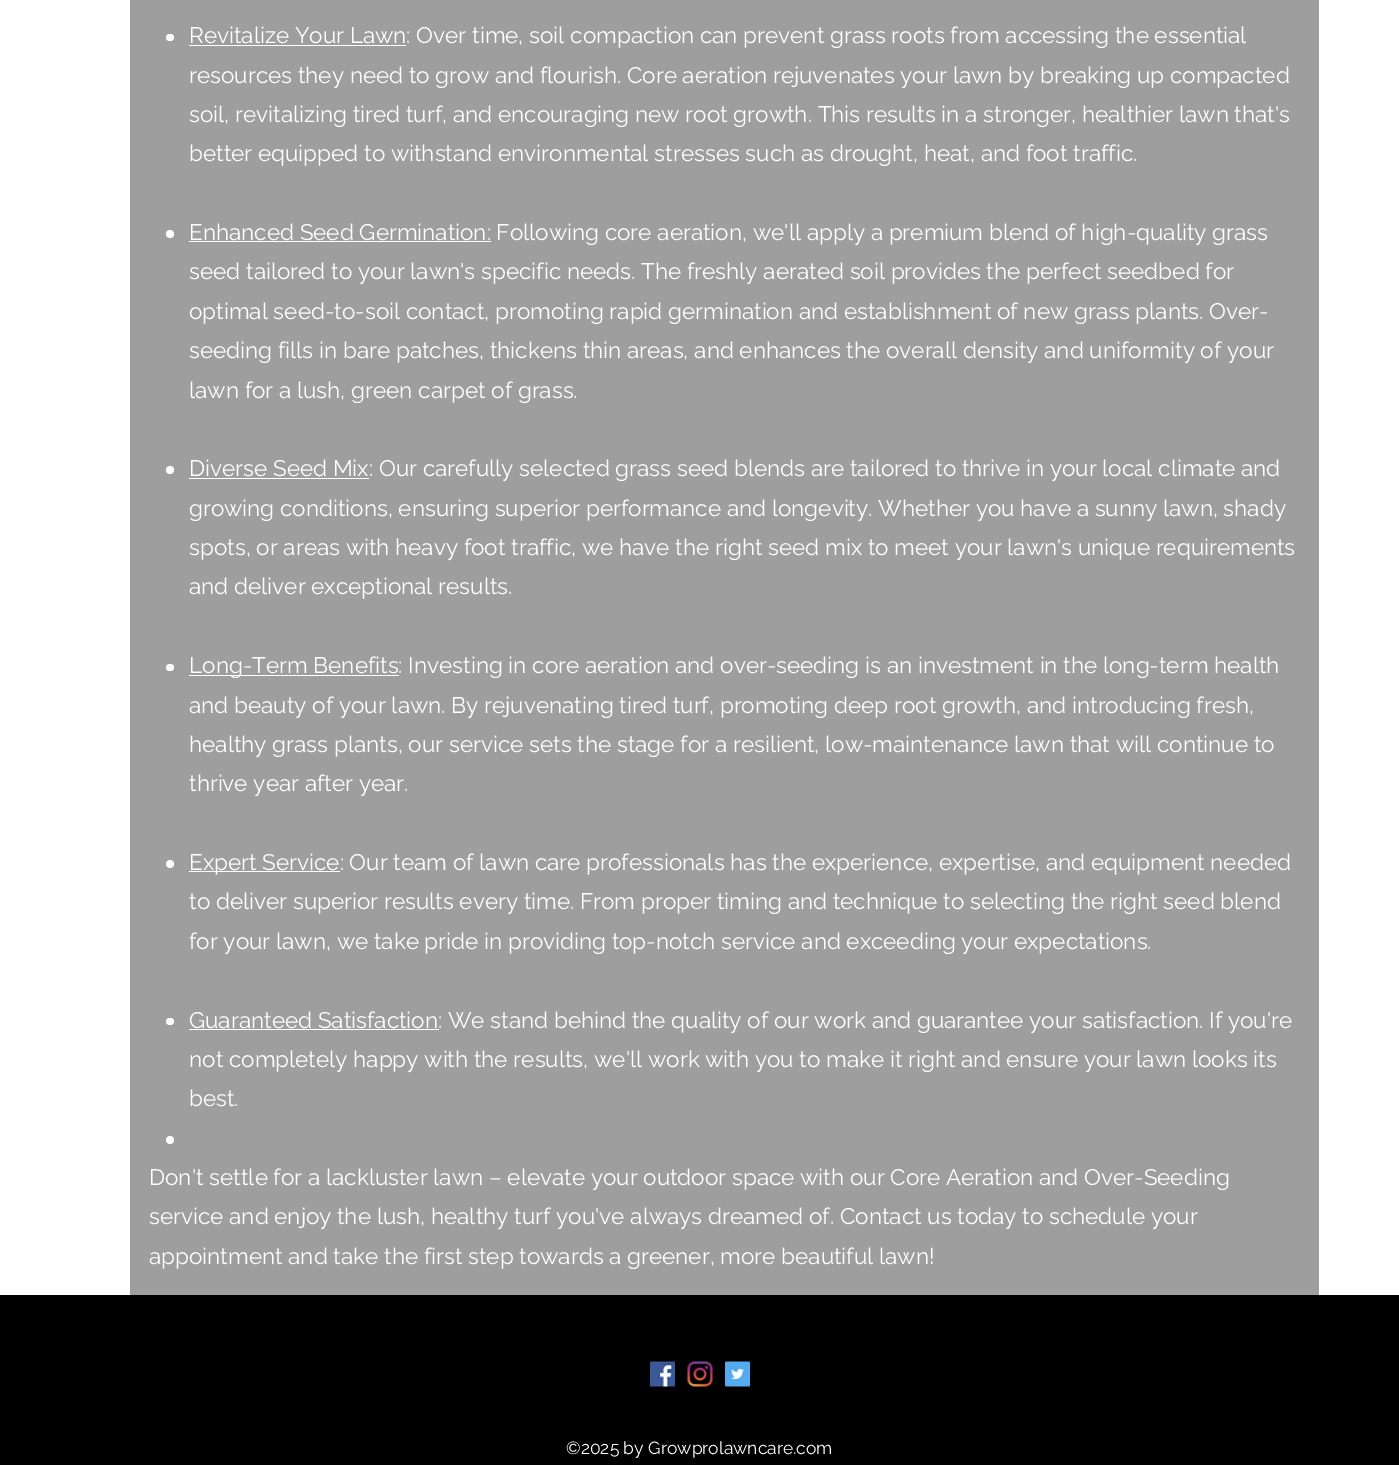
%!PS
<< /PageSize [1399 1465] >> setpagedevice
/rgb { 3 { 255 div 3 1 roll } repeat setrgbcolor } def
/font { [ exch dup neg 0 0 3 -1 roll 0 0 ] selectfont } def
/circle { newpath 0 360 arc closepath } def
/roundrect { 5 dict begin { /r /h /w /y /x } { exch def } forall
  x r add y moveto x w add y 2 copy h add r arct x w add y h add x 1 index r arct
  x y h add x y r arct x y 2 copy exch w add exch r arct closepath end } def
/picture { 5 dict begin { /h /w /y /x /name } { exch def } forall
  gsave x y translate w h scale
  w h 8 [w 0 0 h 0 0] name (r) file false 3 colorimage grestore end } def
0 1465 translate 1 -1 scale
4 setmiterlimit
255 255 255 rgb
0 0 1399 1465 rectfill
158 158 158 rgb
130 0 1189 1295 rectfill
255 255 255 rgb
166 34 8 7 3.5 roundrect fill
189 45 217 1 rectfill
170 234 4 circle fill
189 241 302 1 rectfill
170 470 4 circle fill
189 478 180 1 rectfill
166 664 8 7 3.5 roundrect fill
189 675 210 1 rectfill
170 864 4 circle fill
189 871 151 1 rectfill
166 1018 8 7 3.5 roundrect fill
189 1029 250 1 rectfill
170 1140 4 circle fill
0 0 0 rgb
0 1295 1399 170 rectfill
(img/1.rgb) 650 1361 25 26 picture
(img/2.rgb) 687 1361 26 26 picture
(img/3.rgb) 725 1361 25 26 picture
/Raleway-Regular 22.5 font
255 255 255 rgb
[
  [(Revitalize Your Lawn: Over time, soil compaction can prevent grass roots from accessing the essential) 189 43]
  [(resources they need to grow and flourish. Core aeration rejuvenates your lawn by breaking up compacted) 189 83]
  [(soil, revitalizing tired turf, and encouraging new root growth. This results in a stronger, healthier lawn that's) 189 122]
  [(better equipped to withstand environmental stresses such as drought, heat, and foot traffic.) 189 161]
  [(Enhanced Seed Germination: Following core aeration, we'll apply a premium blend of high-quality grass) 189 240]
  [(seed tailored to your lawn's specific needs. The freshly aerated soil provides the perfect seedbed for) 189 279]
  [(optimal seed-to-soil contact, promoting rapid germination and establishment of new grass plants. Over-) 189 319]
  [(seeding fills in bare patches, thickens thin areas, and enhances the overall density and uniformity of your) 189 358]
  [(lawn for a lush, green carpet of grass.) 189 398]
  [(Diverse Seed Mix: Our carefully selected grass seed blends are tailored to thrive in your local climate and) 189 476]
  [(growing conditions, ensuring superior performance and longevity. Whether you have a sunny lawn, shady) 189 516]
  [(spots, or areas with heavy foot traffic, we have the right seed mix to meet your lawn's unique requirements) 189 555]
  [(and deliver exceptional results.) 189 594]
  [(Long-Term Benefits: Investing in core aeration and over-seeding is an investment in the long-term health) 189 673]
  [(and beauty of your lawn. By rejuvenating tired turf, promoting deep root growth, and introducing fresh,) 189 713]
  [(healthy grass plants, our service sets the stage for a resilient, low-maintenance lawn that will continue to) 189 752]
  [(thrive year after year.) 189 791]
  [(Expert Service: Our team of lawn care professionals has the experience, expertise, and equipment needed) 189 870]
  [(to deliver superior results every time. From proper timing and technique to selecting the right seed blend) 189 909]
  [(for your lawn, we take pride in providing top-notch service and exceeding your expectations.) 189 949]
  [(Guaranteed Satisfaction: We stand behind the quality of our work and guarantee your satisfaction. If you're) 189 1028]
  [(not completely happy with the results, we'll work with you to make it right and ensure your lawn looks its) 189 1067]
  [(best.) 189 1106]
  [(Don't settle for a lackluster lawn – elevate your outdoor space with our Core Aeration and Over-Seeding) 149 1185]
  [(service and enjoy the lush, healthy turf you've always dreamed of. Contact us today to schedule your) 149 1224]
  [(appointment and take the first step towards a greener, more beautiful lawn!) 149 1264]
] { aload pop moveto show } forall
/Raleway-Regular 17.5 font
566 1454 moveto (©2025 by Growprolawncare.com) show
showpage
